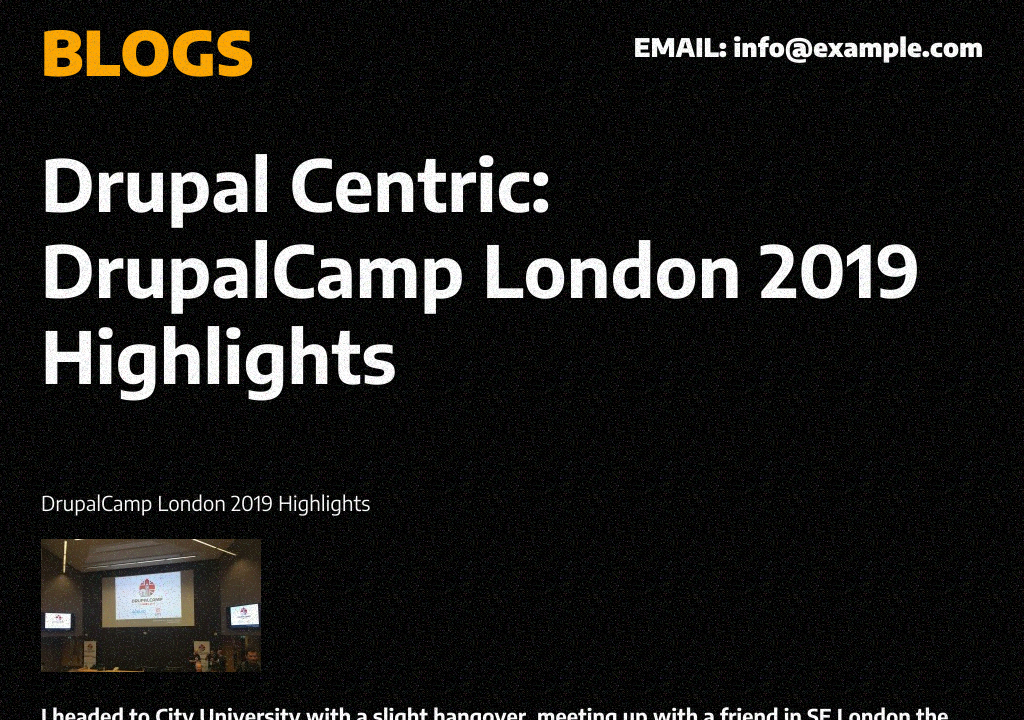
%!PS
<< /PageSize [1024 720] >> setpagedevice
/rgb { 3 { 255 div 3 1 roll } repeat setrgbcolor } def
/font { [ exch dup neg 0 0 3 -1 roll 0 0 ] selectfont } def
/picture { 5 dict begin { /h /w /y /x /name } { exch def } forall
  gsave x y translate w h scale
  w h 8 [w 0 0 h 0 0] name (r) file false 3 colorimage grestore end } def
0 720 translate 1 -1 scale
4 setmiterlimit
0 0 0 rgb
0 0 1024 720 rectfill
(img/2.rgb) 41 539 220 133 picture
/EncodeSans-Black 61.5 font
255 168 0 rgb
41 76 moveto (BLOGS) show
/EncodeSans-Black 25.6 font
255 255 255 rgb
634 57 moveto (EMAIL: info@example.com) show
/EncodeSans-Bold 71.75 font
[
  [(Drupal Centric:) 41 212]
  [(DrupalCamp London 2019) 41 298]
  [(Highlights) 41 384]
] { aload pop moveto show } forall
/EncodeSans-Regular 20.5 font
41 511 moveto (DrupalCamp London 2019 Highlights) show
/EncodeSans-Bold 20.5 font
41 724 moveto (I headed to City University with a slight hangover, meeting up with a friend in SE London the) show
(img/1.rgb) 0 0 1024 720 picture
showpage
